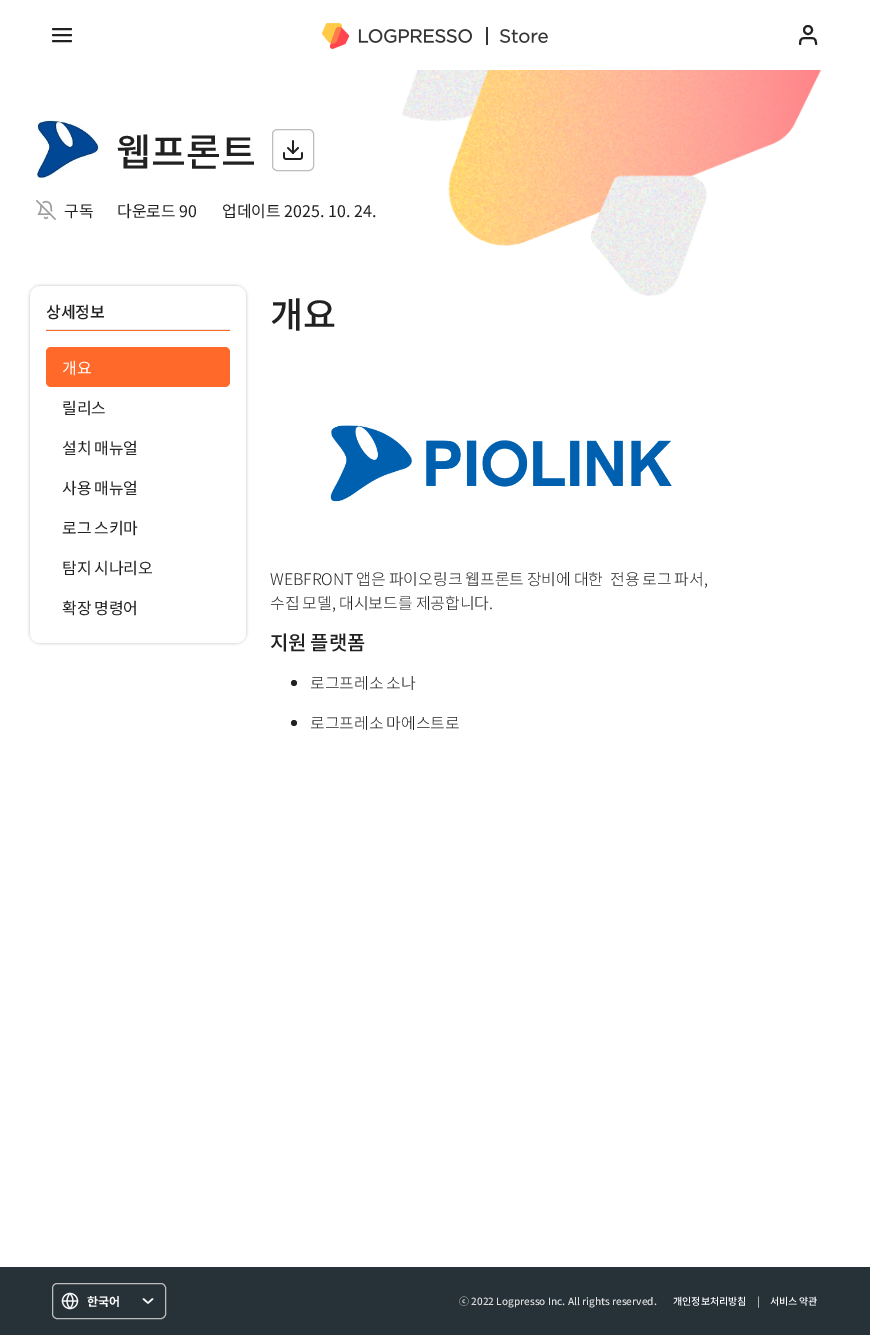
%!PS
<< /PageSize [870 1335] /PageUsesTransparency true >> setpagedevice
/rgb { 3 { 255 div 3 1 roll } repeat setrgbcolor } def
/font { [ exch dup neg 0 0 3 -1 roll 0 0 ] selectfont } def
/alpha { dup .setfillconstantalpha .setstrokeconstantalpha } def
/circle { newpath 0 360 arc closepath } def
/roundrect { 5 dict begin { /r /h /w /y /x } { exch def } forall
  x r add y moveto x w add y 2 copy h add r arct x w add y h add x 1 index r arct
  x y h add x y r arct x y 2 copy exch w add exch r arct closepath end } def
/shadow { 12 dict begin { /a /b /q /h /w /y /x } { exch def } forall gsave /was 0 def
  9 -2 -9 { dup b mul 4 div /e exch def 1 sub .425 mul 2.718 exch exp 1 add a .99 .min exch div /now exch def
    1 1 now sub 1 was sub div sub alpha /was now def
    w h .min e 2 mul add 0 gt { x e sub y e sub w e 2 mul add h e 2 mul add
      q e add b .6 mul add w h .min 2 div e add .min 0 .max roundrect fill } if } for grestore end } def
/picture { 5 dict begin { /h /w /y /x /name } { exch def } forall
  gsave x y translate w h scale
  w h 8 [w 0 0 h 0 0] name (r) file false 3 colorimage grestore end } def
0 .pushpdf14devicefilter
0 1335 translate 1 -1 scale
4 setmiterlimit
255 255 255 rgb
0 0 870 1335 rectfill
(img/1.rgb) 402 70 420 226 picture
33 33 33 rgb
2 setlinewidth
1 setlinecap
1 setlinejoin
53 35 moveto 71 35 lineto 53 29 moveto 71 29 lineto 53 41 moveto 71 41 lineto stroke
(img/2.rgb) 322 23 150 26 picture
(img/3.rgb) 486 27 62 18 picture
816 44 moveto 816 37.5 813.5 38 808 38 curveto 802.5 38 800 37.5 800 44 curveto stroke
0 setlinecap
0 setlinejoin
808 30 4 circle stroke
(img/4.rgb) 36 120 64 59 picture
189 189 189 rgb
1 setlinewidth
272.5 129.5 41 41 4.5 roundrect stroke
(img/5.rgb) 283 140 20 20 picture
(img/6.rgb) 36 200 20 20 picture
0 0 0 rgb
30 286 216 357 10 1.5 0.25 shadow
255 255 255 rgb
30 286 216 357 10 roundrect fill
230 230 230 rgb
46 329 184 1 rectfill
255 105 42 rgb
46 330 184 1 rectfill
46 347 184 40 5 roundrect fill
(img/7.rgb) 330 425 342 77 picture
33 33 33 rgb
294 683 3 circle fill
294 723 3 circle fill
38 50 56 rgb
0 1267 870 68 rectfill
189 189 189 rgb
52.5 1283.5 113 35 4.5 roundrect stroke
(img/8.rgb) 61 1292 18 18 picture
250 250 250 rgb
1.5 setlinewidth
1 setlinecap
1 setlinejoin
143.5 1299 moveto 148 1303 lineto 152.5 1299 lineto stroke
/NotoSansKR-Medium 38 font
33 33 33 rgb
116 166 moveto (웹프론트) show
/NotoSansKR-Regular 16 font
[
  [(구독) 64 217]
  [(다운로드 90) 117 217]
  [(업데이트 2025. 10. 24.) 222 217]
] { aload pop moveto show } forall
/NotoSansKR-Medium 16 font
46 318 moveto (상세정보) show
/NotoSansKR-Regular 16 font
255 255 255 rgb
62 374 moveto (개요) show
33 33 33 rgb
62 414 moveto (릴리스) show
62 454 moveto -1 0 32 (설치 매뉴얼) widthshow
62 494 moveto -1 0 32 (사용 매뉴얼) widthshow
62 534 moveto -1 0 32 (로그 스키마) widthshow
62 574 moveto -1 0 32 (탐지 시나리오) widthshow
62 614 moveto -1 0 32 (확장 명령어) widthshow
/NotoSansKR-Medium 36 font
270 328 moveto (개요) show
/NotoSansKR-Light 16 font
270 585 moveto -0.75 0 32 (WEBFRONT 앱은 파이오링크 웹프론트 장비에 대한) widthshow
610 585 moveto -0.75 0 32 (전용 로그 파서,) widthshow
270 609 moveto -0.5 0 32 (수집 모델, 대시보드를 제공합니다.) widthshow
/NotoSansKR-Medium 20 font
270 650 moveto -1 0 32 (지원 플랫폼) widthshow
/NotoSansKR-Light 16 font
310 689 moveto -1 0 32 (로그프레소 소나) widthshow
310 729 moveto -1 0 32 (로그프레소 마에스트로) widthshow
/NotoSansKR-Bold 12 font
255 255 255 rgb
87 1306 moveto (한국어) show
/NotoSansKR-Medium 10 font
224 224 224 rgb
459 1305 moveto (ⓒ 2022 Logpresso Inc. All rights reserved.) show
255 255 255 rgb
673 1305 moveto (개인정보처리방침) show
224 224 224 rgb
757 1305 moveto (|) show
255 255 255 rgb
770 1305 moveto -1 0 32 (서비스 약관) widthshow
.poppdf14devicefilter showpage
